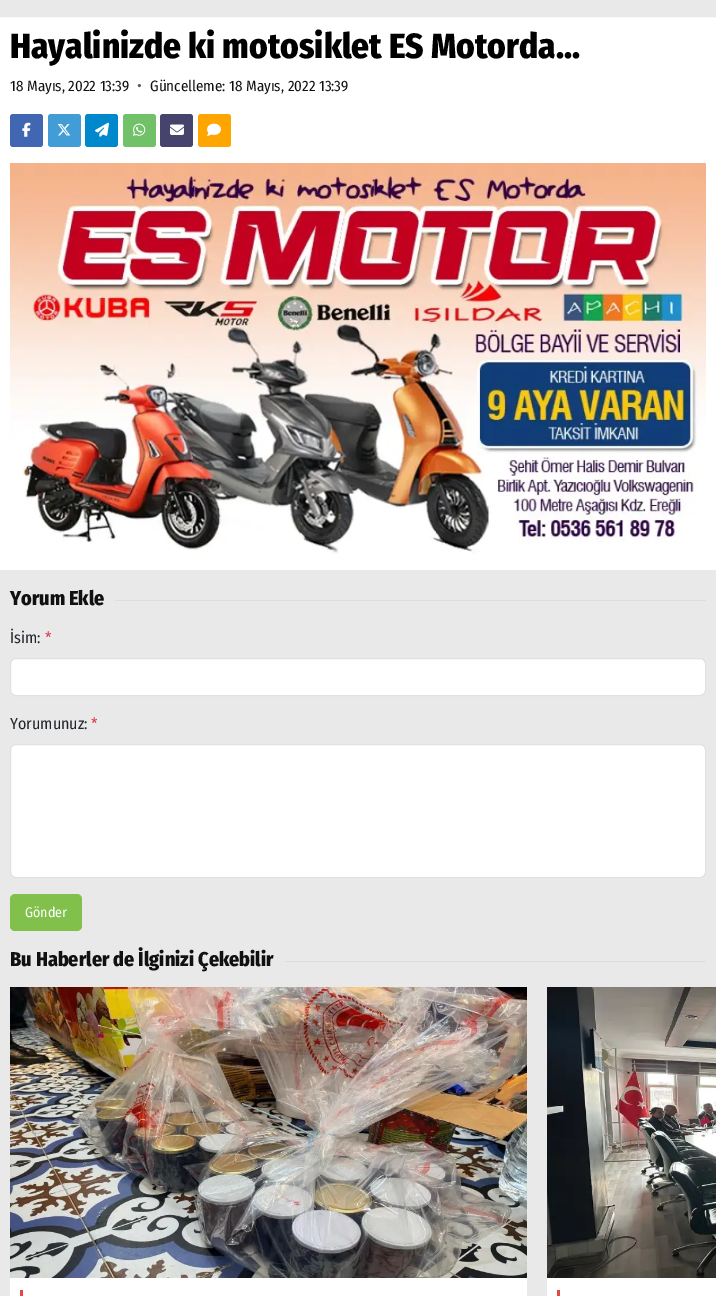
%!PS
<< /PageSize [716 1296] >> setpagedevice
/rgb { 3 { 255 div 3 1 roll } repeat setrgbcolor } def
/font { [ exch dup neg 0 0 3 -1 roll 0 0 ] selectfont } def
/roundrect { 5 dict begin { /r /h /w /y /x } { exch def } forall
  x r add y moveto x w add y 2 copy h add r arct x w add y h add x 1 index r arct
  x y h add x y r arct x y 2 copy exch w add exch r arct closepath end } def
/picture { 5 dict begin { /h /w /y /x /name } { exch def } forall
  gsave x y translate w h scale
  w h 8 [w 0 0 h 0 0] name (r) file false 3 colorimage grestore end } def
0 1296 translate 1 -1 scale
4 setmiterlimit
233 233 233 rgb
0 0 716 1296 rectfill
255 255 255 rgb
0 18 716 552 rectfill
249 249 249 rgb
0 17 716 1 rectfill
66 103 178 rgb
10 114 33 33 3 roundrect fill
(img/1.rgb) 22 122 9 15 picture
66 156 214 rgb
48 114 33 33 3 roundrect fill
(img/2.rgb) 57 124 14 12 picture
0 136 204 rgb
85 114 33 33 3 roundrect fill
(img/3.rgb) 95 122 14 15 picture
113 193 105 rgb
123 114 33 33 3 roundrect fill
(img/4.rgb) 133 123 13 13 picture
70 68 109 rgb
160 114 33 33 3 roundrect fill
(img/5.rgb) 170 124 14 11 picture
255 165 0 rgb
198 114 33 33 3 roundrect fill
(img/6.rgb) 207 123 14 13 picture
(img/7.rgb) 10 163 696 391 picture
221 221 221 rgb
115 600 591 1 rectfill
255 255 255 rgb
10.5 658.5 695 37 5.5 roundrect gsave fill grestore
222 226 230 rgb
stroke
255 255 255 rgb
10.5 744.5 695 133 5.5 roundrect gsave fill grestore
222 226 230 rgb
stroke
129 193 75 rgb
10 894 72 37 5 roundrect fill
221 221 221 rgb
285 961 421 1 rectfill
255 255 255 rgb
10 1278 517 18 rectfill
(img/8.rgb) 10 987 517 291 picture
231 70 70 rgb
20 1290 3 6 rectfill
255 255 255 rgb
547 1278 169 18 rectfill
(img/9.rgb) 547 987 169 291 picture
231 70 70 rgb
557 1290 3 6 rectfill
/FiraSansCondensed-ExtraBold 35 font
0 0 0 rgb
10 58 moveto (Hayalinizde ki motosiklet ES Motorda...) show
/FiraSansCondensed-Regular 15 font
17 17 17 rgb
10 91 moveto (18 Mayıs, 2022 13:39) show
/FiraSansCondensed-Regular 16 font
89 92 95 rgb
137 91 moveto (•) show
/FiraSansCondensed-Regular 15 font
17 17 17 rgb
150 91 moveto (Güncelleme: 18 Mayıs, 2022 13:39) show
/FiraSansCondensed-ExtraBold 20 font
10 605 moveto (Yorum Ekle) show
/FiraSansCondensed-Regular 16 font
33 37 41 rgb
10 643 moveto (İsim:) show
220 53 69 rgb
45 643 moveto (*) show
33 37 41 rgb
10 729 moveto (Yorumunuz:) show
220 53 69 rgb
91 729 moveto (*) show
/FiraSansCondensed-Regular 14 font
255 255 255 rgb
25 917 moveto (Gönder) show
/FiraSansCondensed-ExtraBold 20 font
17 17 17 rgb
10 966 moveto (Bu Haberler de İlginizi Çekebilir) show
showpage
